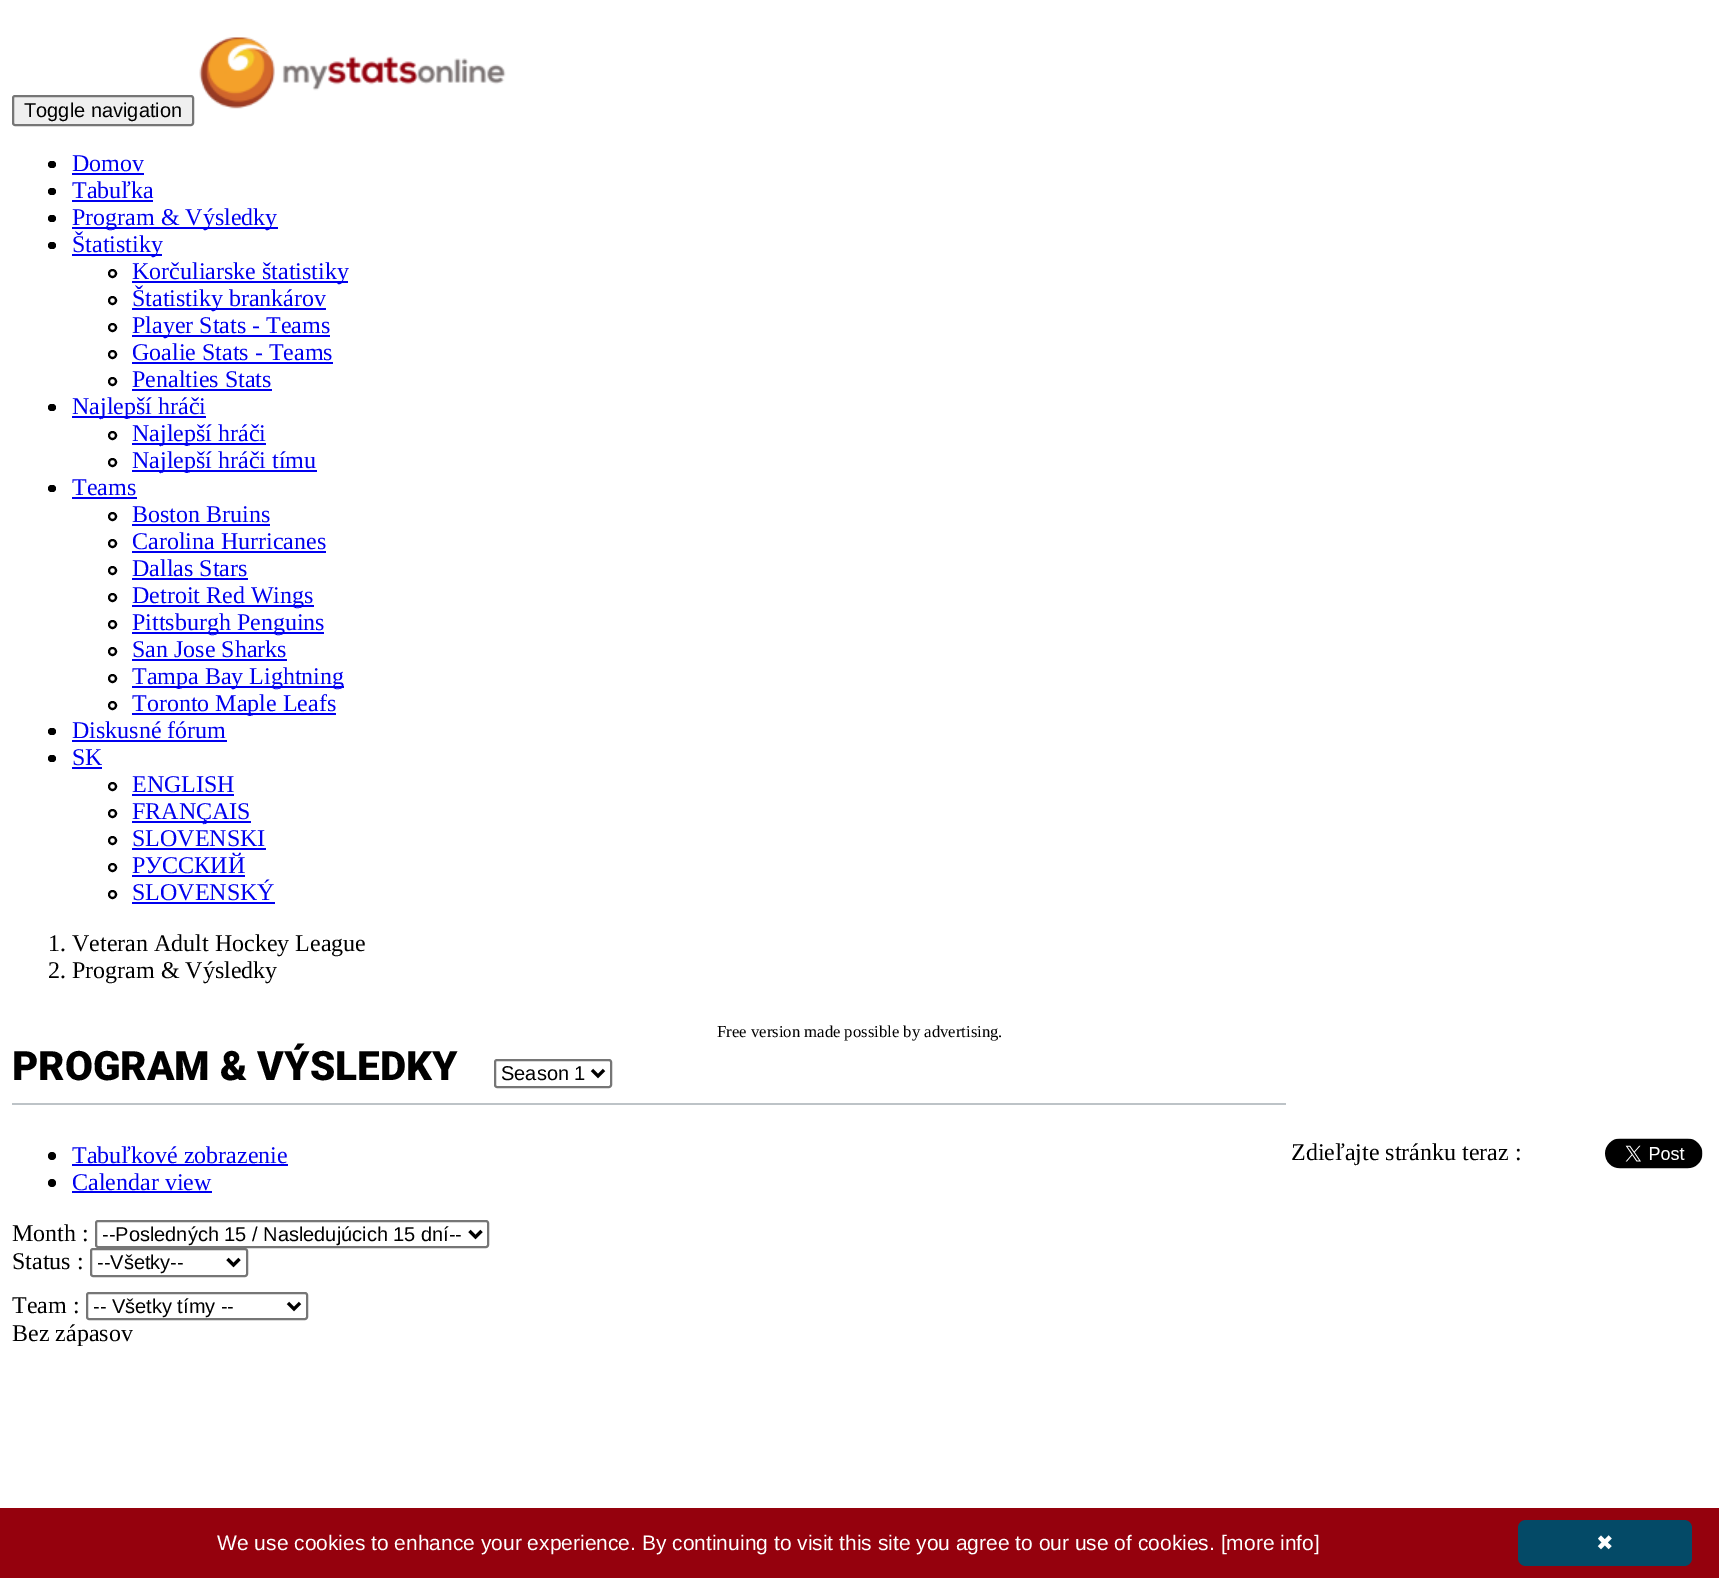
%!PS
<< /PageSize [1719 1578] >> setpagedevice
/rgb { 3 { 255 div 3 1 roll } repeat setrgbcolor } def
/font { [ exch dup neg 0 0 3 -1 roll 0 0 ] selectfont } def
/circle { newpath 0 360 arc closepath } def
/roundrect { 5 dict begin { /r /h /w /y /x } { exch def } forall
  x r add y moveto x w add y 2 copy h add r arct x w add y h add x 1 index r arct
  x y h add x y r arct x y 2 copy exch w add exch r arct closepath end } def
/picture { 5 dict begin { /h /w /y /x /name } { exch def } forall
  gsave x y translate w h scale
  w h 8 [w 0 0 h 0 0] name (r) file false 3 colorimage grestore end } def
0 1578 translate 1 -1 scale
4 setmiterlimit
255 255 255 rgb
0 0 1719 1578 rectfill
(img/1.rgb) 199 37 307 72 picture
239 239 239 rgb
13 96 180 29 2 roundrect gsave fill grestore
118 118 118 rgb
2 setlinewidth
stroke
0 0 0 rgb
48 161 8 7 3.5 roundrect fill
0 0 238 rgb
72 173 72 2 rectfill
0 0 0 rgb
48 188 8 7 3.5 roundrect fill
0 0 238 rgb
72 200 81 2 rectfill
0 0 0 rgb
48 215 8 7 3.5 roundrect fill
0 0 238 rgb
72 227 206 2 rectfill
0 0 0 rgb
48 242 8 7 3.5 roundrect fill
0 0 238 rgb
72 254 90 2 rectfill
0 0 0 rgb
112.5 273.5 3.5 circle stroke
0 0 238 rgb
132 281 216 2 rectfill
0 0 0 rgb
112.5 300.5 3.5 circle stroke
0 0 238 rgb
132 308 194 2 rectfill
0 0 0 rgb
112.5 327.5 3.5 circle stroke
0 0 238 rgb
132 335 198 2 rectfill
0 0 0 rgb
112.5 354.5 3.5 circle stroke
0 0 238 rgb
132 362 201 2 rectfill
0 0 0 rgb
112.5 381.5 3.5 circle stroke
0 0 238 rgb
132 389 140 2 rectfill
0 0 0 rgb
48 404 8 7 3.5 roundrect fill
0 0 238 rgb
72 416 134 2 rectfill
0 0 0 rgb
112.5 435.5 3.5 circle stroke
0 0 238 rgb
132 443 134 2 rectfill
0 0 0 rgb
112.5 462.5 3.5 circle stroke
0 0 238 rgb
132 470 185 2 rectfill
0 0 0 rgb
48 485 8 7 3.5 roundrect fill
0 0 238 rgb
72 497 65 2 rectfill
0 0 0 rgb
112.5 516.5 3.5 circle stroke
0 0 238 rgb
132 524 138 2 rectfill
0 0 0 rgb
112.5 543.5 3.5 circle stroke
0 0 238 rgb
132 551 194 2 rectfill
0 0 0 rgb
112.5 570.5 3.5 circle stroke
0 0 238 rgb
132 578 116 2 rectfill
0 0 0 rgb
112.5 597.5 3.5 circle stroke
0 0 238 rgb
132 605 182 2 rectfill
0 0 0 rgb
112.5 624.5 3.5 circle stroke
0 0 238 rgb
132 632 192 2 rectfill
0 0 0 rgb
112.5 651.5 3.5 circle stroke
0 0 238 rgb
132 659 155 2 rectfill
0 0 0 rgb
112.5 678.5 3.5 circle stroke
0 0 238 rgb
132 686 212 2 rectfill
0 0 0 rgb
112.5 705.5 3.5 circle stroke
0 0 238 rgb
132 713 204 2 rectfill
0 0 0 rgb
48 728 8 7 3.5 roundrect fill
0 0 238 rgb
72 740 155 2 rectfill
0 0 0 rgb
48 755 8 7 3.5 roundrect fill
0 0 238 rgb
72 767 30 2 rectfill
0 0 0 rgb
112.5 786.5 3.5 circle stroke
0 0 238 rgb
132 794 102 2 rectfill
0 0 0 rgb
112.5 813.5 3.5 circle stroke
0 0 238 rgb
132 821 119 2 rectfill
0 0 0 rgb
112.5 840.5 3.5 circle stroke
0 0 238 rgb
132 848 134 2 rectfill
0 0 0 rgb
112.5 867.5 3.5 circle stroke
0 0 238 rgb
132 875 113 2 rectfill
0 0 0 rgb
112.5 894.5 3.5 circle stroke
0 0 238 rgb
132 902 143 2 rectfill
118 118 118 rgb
495 1060 116 27 2 roundrect stroke
0 0 0 rgb
3 setlinewidth
592 1070 moveto 598 1076 lineto 604 1070 lineto stroke
189 195 199 rgb
12 1103 1274 2 rectfill
(img/2.rgb) 1605 1138 98 31 picture
0 0 0 rgb
52 1156 4 circle fill
0 0 238 rgb
72 1164 216 2 rectfill
0 0 0 rgb
52 1183 4 circle fill
0 0 238 rgb
72 1191 140 2 rectfill
118 118 118 rgb
2 setlinewidth
96 1221 392 26 2 roundrect stroke
0 0 0 rgb
3 setlinewidth
469.5 1231 moveto 475.5 1237 lineto 481.5 1231 lineto stroke
118 118 118 rgb
2 setlinewidth
91 1249 156 27 2 roundrect stroke
0 0 0 rgb
3 setlinewidth
227.5 1259 moveto 233.5 1265 lineto 239.5 1259 lineto stroke
118 118 118 rgb
2 setlinewidth
87 1293 220 26 2 roundrect stroke
0 0 0 rgb
3 setlinewidth
288 1303 moveto 294 1309 lineto 300 1303 lineto stroke
149 1 13 rgb
0 1508 1719 70 rectfill
4 74 103 rgb
1518 1520 174 46 8 roundrect fill
/LiberationSans-Regular 20 font
0 0 0 rgb
24 117 moveto (Toggle navigation) show
/LiberationSerif-Regular 24 font
0 0 238 rgb
[
  [(Domov) 72 171]
  [(Tabuľka) 72 198]
  [(Program & Výsledky) 72 225]
  [(Štatistiky) 72 252]
  [(Korčuliarske štatistiky) 132 279]
  [(Štatistiky brankárov) 132 306]
  [(Player Stats - Teams) 132 333]
  [(Goalie Stats - Teams) 132 360]
  [(Penalties Stats) 132 387]
  [(Najlepší hráči) 72 414]
  [(Najlepší hráči) 132 441]
  [(Najlepší hráči tímu) 132 468]
  [(Teams) 72 495]
  [(Boston Bruins) 132 522]
  [(Carolina Hurricanes) 132 549]
  [(Dallas Stars) 132 576]
  [(Detroit Red Wings) 132 603]
  [(Pittsburgh Penguins) 132 630]
  [(San Jose Sharks) 132 657]
  [(Tampa Bay Lightning) 132 684]
  [(Toronto Maple Leafs) 132 711]
  [(Diskusné fórum) 72 738]
  [(SK) 72 765]
  [(ENGLISH) 132 792]
  [(FRANÇAIS) 132 819]
  [(SLOVENSKI) 132 846]
  [(РУССКИЙ) 132 873]
  [(SLOVENSKÝ) 132 900]
] { aload pop moveto show } forall
0 0 0 rgb
48 951 moveto (1. Veteran Adult Hockey League) show
48 978 moveto (2. Program & Výsledky) show
/LiberationSerif-Regular 16.7 font
717 1037 moveto (Free version made possible by advertising.) show
/Roboto-Black 40.5 font
12 1080 moveto (PROGRAM & VÝSLEDKY) show
/LiberationSans-Regular 20 font
501 1080 moveto (Season 1) show
/LiberationSerif-Regular 24 font
1291 1160 moveto (Zdieľajte stránku teraz :) show
0 0 238 rgb
72 1163 moveto (Tabuľkové zobrazenie) show
72 1190 moveto (Calendar view) show
0 0 0 rgb
12 1241 moveto (Month :) show
/LiberationSans-Regular 20 font
102 1241 moveto (--Posledných 15 / Nasledujúcich 15 dní--) show
/LiberationSerif-Regular 24 font
12 1269 moveto (Status :) show
/LiberationSans-Regular 20 font
97 1269 moveto (--Všetky--) show
/LiberationSerif-Regular 24 font
12 1313 moveto (Team :) show
/LiberationSans-Regular 20 font
93 1313 moveto (-- Všetky tímy --) show
/LiberationSerif-Regular 24 font
12 1341 moveto (Bez zápasov) show
/LiberationSans-Regular 21 font
255 255 255 rgb
217 1550 moveto (We use cookies to enhance your experience. By continuing to visit this site you agree to our use of cookies. [more info]) show
/DejaVuSans-Regular 21 font
1596 1550 moveto (✖) show
showpage
